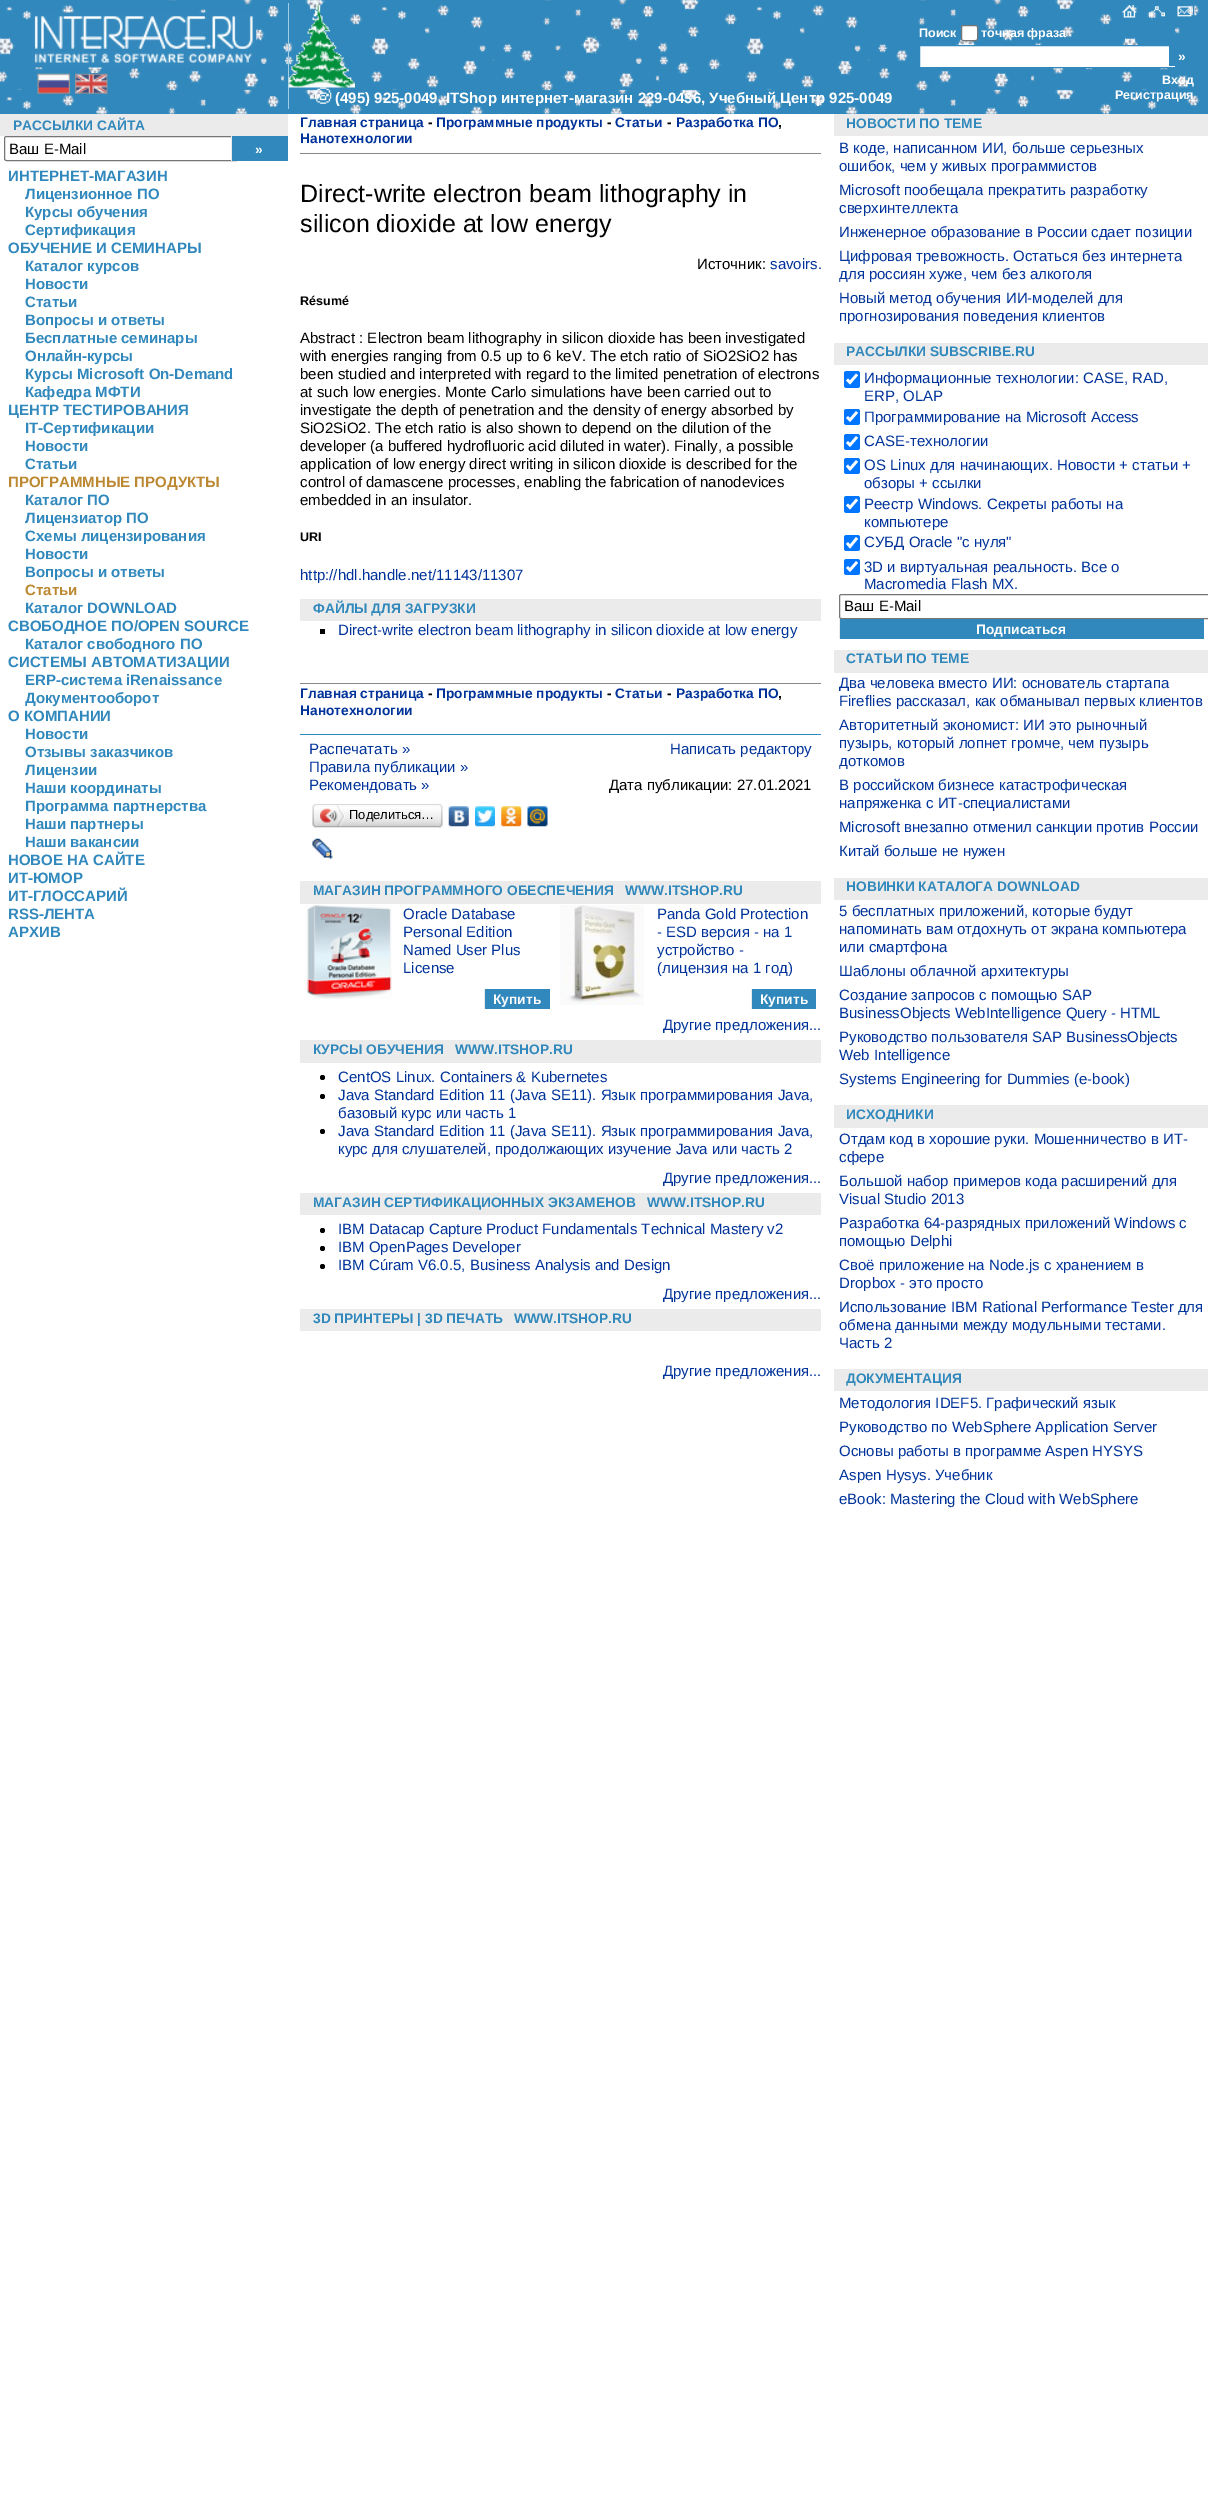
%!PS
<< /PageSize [1208 2513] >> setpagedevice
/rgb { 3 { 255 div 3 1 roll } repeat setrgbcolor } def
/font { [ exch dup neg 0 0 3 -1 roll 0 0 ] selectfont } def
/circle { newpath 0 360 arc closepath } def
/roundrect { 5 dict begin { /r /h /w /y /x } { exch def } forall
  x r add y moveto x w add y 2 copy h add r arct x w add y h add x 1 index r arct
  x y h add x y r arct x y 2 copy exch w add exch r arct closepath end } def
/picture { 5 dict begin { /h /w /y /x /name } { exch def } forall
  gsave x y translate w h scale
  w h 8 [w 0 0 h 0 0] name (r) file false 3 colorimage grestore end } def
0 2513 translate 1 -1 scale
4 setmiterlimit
255 255 255 rgb
0 0 1208 2513 rectfill
49 136 188 rgb
0 0 1208 114 rectfill
(img/1.rgb) 0 0 1200 114 picture
(img/2.rgb) 31 12 226 56 picture
(img/3.rgb) 37 73 33 21 picture
74.5 73.5 34 21 rectstroke
(img/4.rgb) 75 73 33 21 picture
162 206 230 rgb
288 3 1 106 rectfill
(img/5.rgb) 288 2 67 86 picture
(img/6.rgb) 315 87 17 17 picture
(img/7.rgb) 1122 5 15 13 picture
49 136 188 rgb
1148.5 4.5 17 14 rectstroke
(img/8.rgb) 1148 6 17 11 picture
1175.5 4.5 18 14 rectstroke
(img/9.rgb) 1177 6 15 11 picture
255 255 255 rgb
961.5 25.5 16 15 2 roundrect gsave fill grestore
118 118 118 rgb
stroke
255 255 255 rgb
919.5 45.5 moveto 1175.5 45.5 lineto 1175.5 67.5 lineto 919.5 67.5 lineto closepath gsave fill grestore
49 136 188 rgb
stroke
1169 46 6 20 rectfill
235 235 235 rgb
0 114 288 22 rectfill
118 118 118 rgb
4.5 136.5 234 24 2 roundrect stroke
[
  [232 136 56 25 49 136 188]
  [231 136 1 25 235 235 235]
  [300 153 521 1 137 137 137]
  [300 599 521 22 235 235 235]
  [320 629 5 5 0 0 0]
  [300 683 521 1 137 137 137]
  [300 734 521 1 49 136 188]
] { aload pop rgb rectfill } forall
(img/10.rgb) 316 804 123 24 picture
(img/11.rgb) 312 803 5 25 picture
(img/12.rgb) 320 805 25 22 picture
(img/13.rgb) 438 803 5 25 picture
(img/14.rgb) 448 806 21 21 picture
(img/15.rgb) 475 806 20 21 picture
(img/16.rgb) 501 806 21 21 picture
(img/17.rgb) 527 806 21 21 picture
(img/18.rgb) 312 838 21 21 picture
235 235 235 rgb
300 881 521 23 rectfill
(img/19.rgb) 305 905 87 94 picture
49 136 188 rgb
485 989 65 20 rectfill
235 235 235 rgb
484 989 1 20 rectfill
(img/20.rgb) 560 905 84 100 picture
[
  [752 989 64 20 49 136 188]
  [751 989 1 20 235 235 235]
  [300 1040 521 23 235 235 235]
] { aload pop rgb rectfill } forall
0 0 0 rgb
322.5 1077.5 2.5 circle fill
322.5 1096.5 2.5 circle fill
322.5 1131.5 2.5 circle fill
235 235 235 rgb
300 1193 521 22 rectfill
0 0 0 rgb
322.5 1230.5 2.5 circle fill
322.5 1248.5 2.5 circle fill
322.5 1266.5 2.5 circle fill
[
  [300 1309 521 22 235 235 235]
  [834 114 374 22 235 235 235]
  [834 343 374 22 235 235 235]
] { aload pop rgb rectfill } forall
0 117 255 rgb
844 371 16 17 2.5 roundrect fill
255 255 255 rgb
2.6 setlinewidth
847 379.5 moveto 850 382.5 lineto 857 374.5 lineto stroke
0 117 255 rgb
844 409 16 16 2.5 roundrect fill
255 255 255 rgb
847 417 moveto 850 420 lineto 857 412 lineto stroke
0 117 255 rgb
844 434 16 16 2.5 roundrect fill
255 255 255 rgb
847 442 moveto 850 445 lineto 857 437 lineto stroke
0 117 255 rgb
844 458 16 16 2.5 roundrect fill
255 255 255 rgb
847 465.5 moveto 850 469 lineto 857 461 lineto stroke
0 117 255 rgb
844 496 16 17 2.5 roundrect fill
255 255 255 rgb
847 504.5 moveto 850 507.5 lineto 857 499.5 lineto stroke
0 117 255 rgb
844 535 16 16 2.5 roundrect fill
255 255 255 rgb
847 543 moveto 850 546.5 lineto 857 538 lineto stroke
0 117 255 rgb
844 559 16 16 2.5 roundrect fill
255 255 255 rgb
847 567 moveto 850 570 lineto 857 562 lineto stroke
118 118 118 rgb
1 setlinewidth
839.5 594.5 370 24 2 roundrect stroke
[
  [840 619 364 20 49 136 188]
  [839 619 1 20 235 235 235]
  [834 650 374 23 235 235 235]
  [834 878 374 22 235 235 235]
  [834 1105 374 23 235 235 235]
  [834 1369 374 22 235 235 235]
] { aload pop rgb rectfill } forall
/LiberationSans-Bold 15 font
255 255 255 rgb
335 103 moveto (\(495\) 925-0049, ITShop интернет-магазин 229-0436, Учебный Центр 925-0049) show
/LiberationSans-Bold 12.5 font
919 37 moveto (Поиск) show
981 37 moveto (точная фраза) show
/LiberationSans-Bold 13.75 font
1178 61 moveto (») show
/LiberationSans-Bold 12.5 font
1162 84 moveto (Вход) show
1115 99 moveto (Регистрация) show
/LiberationSans-Bold 13.75 font
49 136 188 rgb
13 130 moveto (РАССЫЛКИ САЙТА) show
/LiberationSans-Regular 15 font
0 0 0 rgb
9 154 moveto (Ваш E-Mail) show
/LiberationSans-Bold 13.75 font
255 255 255 rgb
255 154 moveto (») show
/LiberationSans-Bold 15 font
49 136 188 rgb
[
  [(ИНТЕРНЕТ-МАГАЗИН) 8 181]
  [(Лицензионное ПО) 25 199]
  [(Курсы обучения) 25 217]
  [(Сертификация) 25 235]
  [(ОБУЧЕНИЕ И СЕМИНАРЫ) 8 253]
  [(Каталог курсов) 25 271]
  [(Новости) 25 289]
  [(Статьи) 25 307]
  [(Вопросы и ответы) 25 325]
  [(Бесплатные семинары) 25 343]
  [(Онлайн-курсы) 25 361]
  [(Курсы Microsoft On-Demand) 25 379]
  [(Кафедра МФТИ) 25 397]
  [(ЦЕНТР ТЕСТИРОВАНИЯ) 8 415]
  [(IT-Сертификации) 25 433]
  [(Новости) 25 451]
  [(Статьи) 25 469]
] { aload pop moveto show } forall
188 136 49 rgb
8 487 moveto (ПРОГРАММНЫЕ ПРОДУКТЫ) show
49 136 188 rgb
[
  [(Каталог ПО) 25 505]
  [(Лицензиатор ПО) 25 523]
  [(Схемы лицензирования) 25 541]
  [(Новости) 25 559]
  [(Вопросы и ответы) 25 577]
] { aload pop moveto show } forall
188 136 49 rgb
25 595 moveto (Статьи) show
49 136 188 rgb
[
  [(Каталог DOWNLOAD) 25 613]
  [(СВОБОДНОЕ ПО/OPEN SOURCE) 8 631]
  [(Каталог свободного ПО) 25 649]
  [(СИСТЕМЫ АВТОМАТИЗАЦИИ) 8 667]
  [(ERP-система iRenaissance) 25 685]
  [(Документооборот) 25 703]
  [(О КОМПАНИИ) 8 721]
  [(Новости) 25 739]
  [(Отзывы заказчиков) 25 757]
  [(Лицензии) 25 775]
  [(Наши координаты) 25 793]
  [(Программа партнерства) 25 811]
  [(Наши партнеры) 25 829]
  [(Наши вакансии) 25 847]
  [(НОВОЕ НА САЙТЕ) 8 865]
  [(ИТ-ЮМОР) 8 883]
  [(ИТ-ГЛОССАРИЙ) 8 901]
  [(RSS-ЛЕНТА) 8 919]
  [(АРХИВ) 8 937]
] { aload pop moveto show } forall
/LiberationSans-Bold 13.75 font
0 51 153 rgb
300 127 moveto (Главная страница) show
0 0 0 rgb
428 127 moveto (-) show
0 51 153 rgb
436 127 moveto (Программные продукты) show
0 0 0 rgb
607 127 moveto (-) show
0 51 153 rgb
615 127 moveto (Статьи) show
0 0 0 rgb
667 127 moveto (-) show
0 51 153 rgb
676 127 moveto (Разработка ПО) show
0 0 0 rgb
778 127 moveto (,) show
0 51 153 rgb
300 143 moveto (Нанотехнологии) show
/LiberationSans-Regular 25 font
0 0 0 rgb
300 202 moveto (Direct-write electron beam lithography in) show
300 232 moveto (silicon dioxide at low energy) show
/LiberationSans-Regular 15 font
697 269 moveto (Источник:) show
0 51 153 rgb
770 269 moveto (savoirs.) show
/LiberationSans-Bold 12.5 font
0 0 0 rgb
300 305 moveto (Résumé) show
/LiberationSans-Regular 15 font
[
  [(Abstract : Electron beam lithography in silicon dioxide has been investigated) 300 343]
  [(with energies ranging from 0.5 up to 6 keV. The etch ratio of SiO2SiO2 has) 300 361]
  [(been studied and interpreted with regard to the limited penetration of electrons) 300 379]
  [(at such low energies. Monte Carlo simulations have been carried out to) 300 397]
  [(investigate the depth of penetration and the density of energy absorbed by) 300 415]
  [(SiO2SiO2. The etch ratio is also shown to depend on the dilution of the) 300 433]
  [(developer \(a buffered hydrofluoric acid diluted in water\). Finally, a possible) 300 451]
  [(application of low energy direct writing in silicon dioxide is described for the) 300 469]
  [(control of damascene processes, enabling the fabrication of nanodevices) 300 487]
  [(embedded in an insulator.) 300 505]
] { aload pop moveto show } forall
/LiberationSans-Bold 12.5 font
300 541 moveto (URI) show
/LiberationSans-Regular 15 font
0 51 153 rgb
300 580 moveto (http://hdl.handle.net/11143/11307) show
/LiberationSans-Bold 13.75 font
49 136 188 rgb
313 613 moveto (ФАЙЛЫ ДЛЯ ЗАГРУЗКИ) show
/LiberationSans-Regular 15 font
0 51 153 rgb
338 635 moveto (Direct-write electron beam lithography in silicon dioxide at low energy) show
/LiberationSans-Bold 13.75 font
300 698 moveto (Главная страница) show
0 0 0 rgb
428 698 moveto (-) show
0 51 153 rgb
436 698 moveto (Программные продукты) show
0 0 0 rgb
607 698 moveto (-) show
0 51 153 rgb
615 698 moveto (Статьи) show
0 0 0 rgb
667 698 moveto (-) show
0 51 153 rgb
676 698 moveto (Разработка ПО) show
0 0 0 rgb
778 698 moveto (,) show
0 51 153 rgb
300 715 moveto (Нанотехнологии) show
/LiberationSans-Regular 15 font
[
  [(Распечатать ») 309 754]
  [(Правила публикации ») 309 772]
  [(Написать редактору) 670 754]
  [(Рекомендовать ») 309 790]
] { aload pop moveto show } forall
0 0 0 rgb
609 790 moveto (Дата публикации: 27.01.2021) show
/LiberationSans-Regular 13 font
349 819 moveto (Поделиться…) show
/LiberationSans-Bold 13.75 font
49 136 188 rgb
313 895 moveto (МАГАЗИН ПРОГРАММНОГО ОБЕСПЕЧЕНИЯ) show
625 895 moveto (WWW.ITSHOP.RU) show
/LiberationSans-Regular 15 font
0 51 153 rgb
[
  [(Oracle Database) 403 919]
  [(Personal Edition) 403 937]
  [(Named User Plus) 403 955]
  [(License) 403 973]
] { aload pop moveto show } forall
/LiberationSans-Bold 13.75 font
255 255 255 rgb
493 1004 moveto (Купить) show
/LiberationSans-Regular 15 font
0 51 153 rgb
[
  [(Panda Gold Protection) 657 919]
  [(- ESD версия - на 1) 657 937]
  [(устройство -) 657 955]
  [(\(лицензия на 1 год\)) 657 973]
] { aload pop moveto show } forall
/LiberationSans-Bold 13.75 font
255 255 255 rgb
760 1004 moveto (Купить) show
/LiberationSans-Regular 15 font
0 51 153 rgb
663 1030 moveto (Другие предложения...) show
/LiberationSans-Bold 13.75 font
49 136 188 rgb
313 1054 moveto (КУРСЫ ОБУЧЕНИЯ) show
455 1054 moveto (WWW.ITSHOP.RU) show
/LiberationSans-Regular 15 font
0 51 153 rgb
[
  [(CentOS Linux. Containers & Kubernetes) 338 1082]
  [(Java Standard Edition 11 \(Java SE11\). Язык программирования Java,) 338 1100]
  [(базовый курс или часть 1) 338 1118]
  [(Java Standard Edition 11 \(Java SE11\). Язык программирования Java,) 338 1136]
  [(курс для слушателей, продолжающих изучение Java или часть 2) 338 1154]
  [(Другие предложения...) 663 1183]
] { aload pop moveto show } forall
/LiberationSans-Bold 13.75 font
49 136 188 rgb
313 1207 moveto (МАГАЗИН СЕРТИФИКАЦИОННЫХ ЭКЗАМЕНОВ) show
647 1207 moveto (WWW.ITSHOP.RU) show
/LiberationSans-Regular 15 font
0 51 153 rgb
[
  [(IBM Datacap Capture Product Fundamentals Technical Mastery v2) 338 1234]
  [(IBM OpenPages Developer) 338 1252]
  [(IBM Cúram V6.0.5, Business Analysis and Design) 338 1270]
  [(Другие предложения...) 663 1299]
] { aload pop moveto show } forall
/LiberationSans-Bold 13.75 font
49 136 188 rgb
313 1323 moveto (3D ПРИНТЕРЫ | 3D ПЕЧАТЬ) show
514 1323 moveto (WWW.ITSHOP.RU) show
/LiberationSans-Regular 15 font
0 51 153 rgb
663 1376 moveto (Другие предложения...) show
/LiberationSans-Bold 13.75 font
49 136 188 rgb
846 128 moveto (НОВОСТИ ПО ТЕМЕ) show
/LiberationSans-Regular 15 font
0 51 153 rgb
[
  [(В коде, написанном ИИ, больше серьезных) 839 153]
  [(ошибок, чем у живых программистов) 839 171]
  [(Microsoft пообещала прекратить разработку) 839 195]
  [(сверхинтеллекта) 839 213]
  [(Инженерное образование в России сдает позиции) 839 237]
  [(Цифровая тревожность. Остаться без интернета) 839 261]
  [(для россиян хуже, чем без алкоголя) 839 279]
  [(Новый метод обучения ИИ-моделей для) 839 303]
  [(прогнозирования поведения клиентов) 839 321]
] { aload pop moveto show } forall
/LiberationSans-Bold 13.75 font
49 136 188 rgb
846 356 moveto (РАССЫЛКИ SUBSCRIBE.RU) show
/LiberationSans-Regular 15 font
0 51 153 rgb
[
  [(Информационные технологии: CASE, RAD,) 864 383]
  [(ERP, OLAP) 864 401]
  [(Программирование на Microsoft Access) 864 422]
  [(CASE-технологии) 864 446]
  [(OS Linux для начинающих. Новости + статьи +) 864 470]
  [(обзоры + ссылки) 864 488]
  [(Реестр Windows. Секреты работы на) 864 509]
  [(компьютере) 864 527]
  [(СУБД Oracle "с нуля") 864 547]
  [(3D и виртуальная реальность. Все о) 864 572]
  [(Macromedia Flash MX.) 864 589]
] { aload pop moveto show } forall
0 0 0 rgb
844 611 moveto (Ваш E-Mail) show
/LiberationSans-Bold 13.75 font
255 255 255 rgb
976 634 moveto (Подписаться) show
49 136 188 rgb
846 663 moveto (СТАТЬИ ПО ТЕМЕ) show
/LiberationSans-Regular 15 font
0 51 153 rgb
[
  [(Два человека вместо ИИ: основатель стартапа) 839 688]
  [(Fireflies рассказал, как обманывал первых клиентов) 839 706]
  [(Авторитетный экономист: ИИ это рыночный) 839 730]
  [(пузырь, который лопнет громче, чем пузырь) 839 748]
  [(доткомов) 839 766]
  [(В российском бизнесе катастрофическая) 839 790]
  [(напряженка с ИТ-специалистами) 839 808]
  [(Microsoft внезапно отменил санкции против России) 839 832]
  [(Китай больше не нужен) 839 856]
] { aload pop moveto show } forall
/LiberationSans-Bold 13.75 font
49 136 188 rgb
846 891 moveto (НОВИНКИ КАТАЛОГА DOWNLOAD) show
/LiberationSans-Regular 15 font
0 51 153 rgb
[
  [(5 бесплатных приложений, которые будут) 839 916]
  [(напоминать вам отдохнуть от экрана компьютера) 839 934]
  [(или смартфона) 839 952]
  [(Шаблоны облачной архитектуры) 839 976]
  [(Создание запросов с помощью SAP) 839 1000]
  [(BusinessObjects WebIntelligence Query - HTML) 839 1018]
  [(Руководство пользователя SAP BusinessObjects) 839 1042]
  [(Web Intelligence) 839 1060]
  [(Systems Engineering for Dummies \(e-book\)) 839 1084]
] { aload pop moveto show } forall
/LiberationSans-Bold 13.75 font
49 136 188 rgb
846 1119 moveto (ИСХОДНИКИ) show
/LiberationSans-Regular 15 font
0 51 153 rgb
[
  [(Отдам код в хорошие руки. Мошенничество в ИТ-) 839 1144]
  [(сфере) 839 1162]
  [(Большой набор примеров кода расширений для) 839 1186]
  [(Visual Studio 2013) 839 1204]
  [(Разработка 64-разрядных приложений Windows с) 839 1228]
  [(помощью Delphi) 839 1246]
  [(Своё приложение на Node.js с хранением в) 839 1270]
  [(Dropbox - это просто) 839 1288]
  [(Использование IBM Rational Performance Tester для) 839 1312]
  [(обмена данными между модульными тестами.) 839 1330]
  [(Часть 2) 839 1348]
] { aload pop moveto show } forall
/LiberationSans-Bold 13.75 font
49 136 188 rgb
846 1383 moveto (ДОКУМЕНТАЦИЯ) show
/LiberationSans-Regular 15 font
0 51 153 rgb
[
  [(Методология IDEF5. Графический язык) 839 1408]
  [(Руководство по WebSphere Application Server) 839 1432]
  [(Основы работы в программе Aspen HYSYS) 839 1456]
  [(Aspen Hysys. Учебник) 839 1480]
  [(eBook: Mastering the Cloud with WebSphere) 839 1504]
] { aload pop moveto show } forall
showpage
